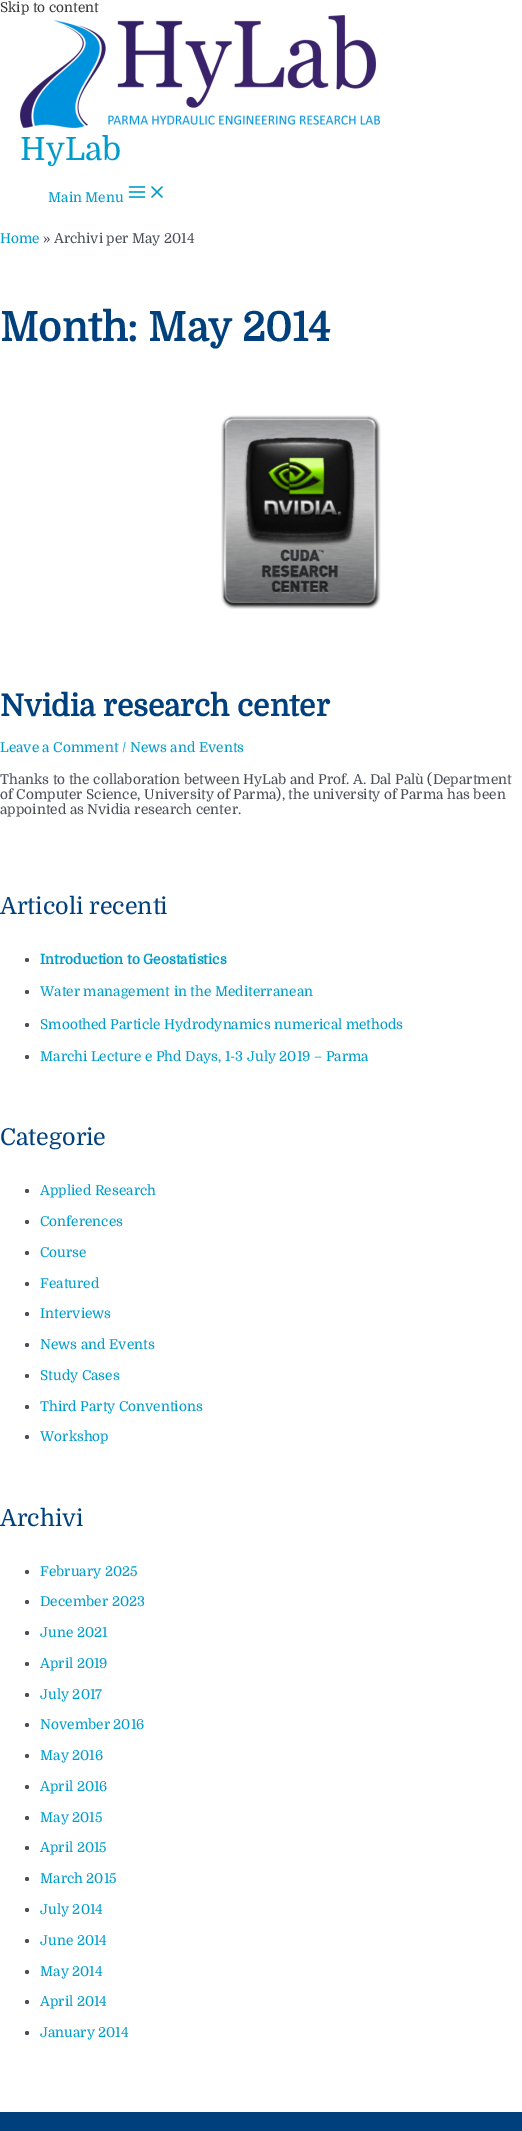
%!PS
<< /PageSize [522 2131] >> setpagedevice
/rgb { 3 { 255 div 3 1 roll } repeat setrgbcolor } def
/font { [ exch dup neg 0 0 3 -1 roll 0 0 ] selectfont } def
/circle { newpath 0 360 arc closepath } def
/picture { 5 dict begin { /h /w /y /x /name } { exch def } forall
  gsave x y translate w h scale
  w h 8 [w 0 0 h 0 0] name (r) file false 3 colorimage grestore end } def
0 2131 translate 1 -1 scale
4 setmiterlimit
255 255 255 rgb
0 0 522 2131 rectfill
(img/1.rgb) 20 15 360 113 picture
(img/2.rgb) 128 186 18 12 picture
(img/3.rgb) 151 186 12 12 picture
(img/4.rgb) 221 415 160 194 picture
75 79 88 rgb
27 960 2 circle fill
27 992 2 circle fill
27 1025 2 circle fill
27 1057 2 circle fill
27 1191 2 circle fill
27 1222 2 circle fill
27 1253 2 circle fill
27 1284 2 circle fill
27 1314 2 circle fill
27 1345 2 circle fill
27 1376 2 circle fill
27 1407 2 circle fill
27 1437 2 circle fill
27 1572 2 circle fill
27 1602 2 circle fill
27 1633 2 circle fill
27 1664 2 circle fill
27 1695 2 circle fill
27 1725 2 circle fill
27 1756 2 circle fill
27 1787 2 circle fill
27 1818 2 circle fill
27 1848 2 circle fill
27 1879 2 circle fill
27 1910 2 circle fill
27 1941 2 circle fill
27 1972 2 circle fill
27 2002 2 circle fill
27 2033 2 circle fill
0 64 125 rgb
0 2112 522 19 rectfill
/Domine-Regular 13.7 font
58 58 58 rgb
0 12 moveto (Skip to content) show
/Domine-Regular 32 font
0 156 204 rgb
20 160 moveto (HyLab) show
/Domine-Regular 13.7 font
48 202 moveto (Main Menu) show
0 243 moveto (Home) show
75 79 88 rgb
43 243 moveto (» Archivi per May 2014) show
/Domine-Bold 40 font
0 64 125 rgb
0 341 moveto (Month: May 2014) show
/Domine-Bold 30 font
0 716 moveto (Nvidia research center) show
/Domine-Regular 13.7 font
0 156 204 rgb
0 752 moveto (Leave a Comment / News and Events) show
75 79 88 rgb
[
  [(Thanks to the collaboration between HyLab and Prof. A. Dal Palù \(Department) 0 784]
  [(of Computer Science, University of Parma\), the university of Parma has been) 0 799]
  [(appointed as Nvidia research center.) 0 814]
] { aload pop moveto show } forall
/Domine-Regular 23.25 font
0 64 125 rgb
0 914 moveto (Articoli recenti) show
/Domine-Bold 13.7 font
0 156 204 rgb
40 964 moveto (Introduction to Geostatistics) show
/Domine-Regular 13.7 font
[
  [(Water management in the Mediterranean) 40 996]
  [(Smoothed Particle Hydrodynamics numerical methods) 40 1029]
  [(Marchi Lecture e Phd Days, 1-3 July 2019 – Parma) 40 1061]
] { aload pop moveto show } forall
/Domine-Regular 23.25 font
0 64 125 rgb
0 1145 moveto (Categorie) show
/Domine-Regular 13.7 font
0 156 204 rgb
[
  [(Applied Research) 40 1195]
  [(Conferences) 40 1226]
  [(Course) 40 1257]
  [(Featured) 40 1288]
  [(Interviews) 40 1318]
  [(News and Events) 40 1349]
  [(Study Cases) 40 1380]
  [(Third Party Conventions) 40 1411]
  [(Workshop) 40 1441]
] { aload pop moveto show } forall
/Domine-Regular 23.25 font
0 64 125 rgb
0 1526 moveto (Archivi) show
/Domine-Regular 13.7 font
0 156 204 rgb
[
  [(February 2025) 40 1576]
  [(December 2023) 40 1606]
  [(June 2021) 40 1637]
  [(April 2019) 40 1668]
  [(July 2017) 40 1699]
  [(November 2016) 40 1729]
  [(May 2016) 40 1760]
  [(April 2016) 40 1791]
  [(May 2015) 40 1822]
  [(April 2015) 40 1852]
  [(March 2015) 40 1883]
  [(July 2014) 40 1914]
  [(June 2014) 40 1945]
  [(May 2014) 40 1976]
  [(April 2014) 40 2006]
  [(January 2014) 40 2037]
] { aload pop moveto show } forall
showpage
